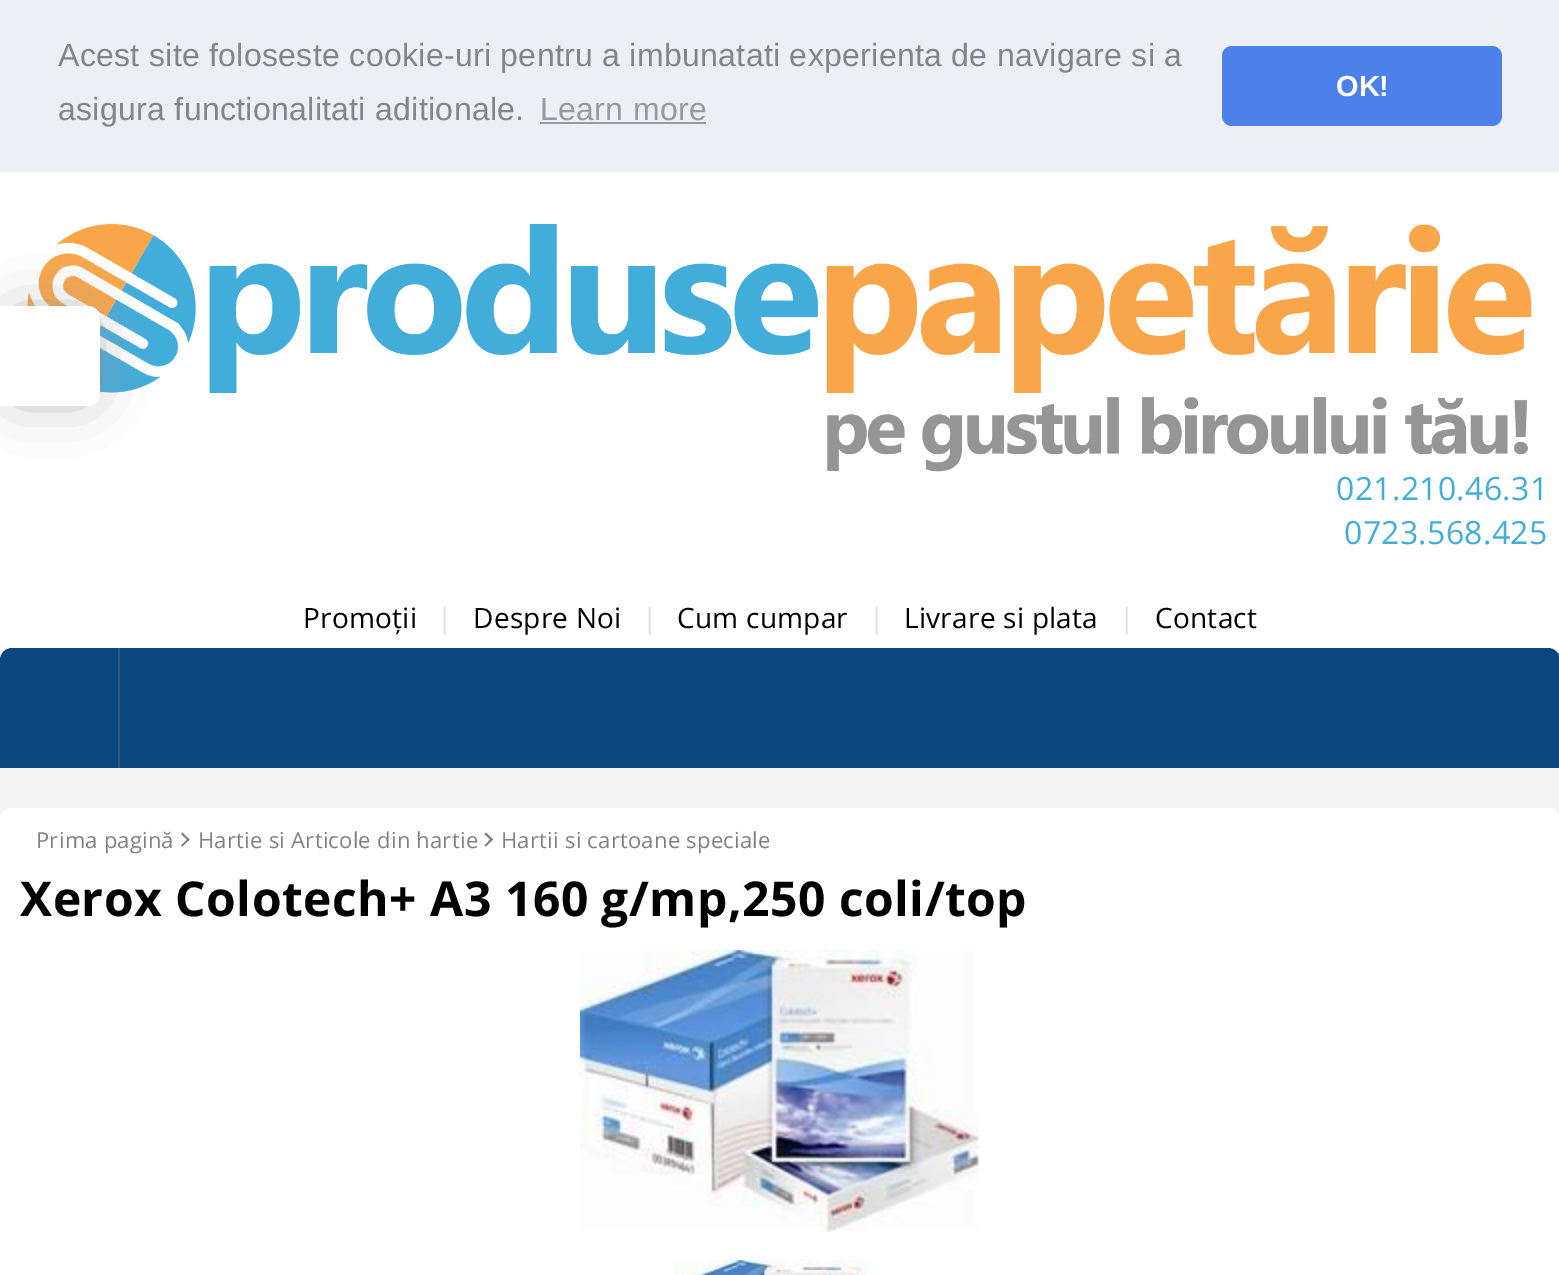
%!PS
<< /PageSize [1559 1275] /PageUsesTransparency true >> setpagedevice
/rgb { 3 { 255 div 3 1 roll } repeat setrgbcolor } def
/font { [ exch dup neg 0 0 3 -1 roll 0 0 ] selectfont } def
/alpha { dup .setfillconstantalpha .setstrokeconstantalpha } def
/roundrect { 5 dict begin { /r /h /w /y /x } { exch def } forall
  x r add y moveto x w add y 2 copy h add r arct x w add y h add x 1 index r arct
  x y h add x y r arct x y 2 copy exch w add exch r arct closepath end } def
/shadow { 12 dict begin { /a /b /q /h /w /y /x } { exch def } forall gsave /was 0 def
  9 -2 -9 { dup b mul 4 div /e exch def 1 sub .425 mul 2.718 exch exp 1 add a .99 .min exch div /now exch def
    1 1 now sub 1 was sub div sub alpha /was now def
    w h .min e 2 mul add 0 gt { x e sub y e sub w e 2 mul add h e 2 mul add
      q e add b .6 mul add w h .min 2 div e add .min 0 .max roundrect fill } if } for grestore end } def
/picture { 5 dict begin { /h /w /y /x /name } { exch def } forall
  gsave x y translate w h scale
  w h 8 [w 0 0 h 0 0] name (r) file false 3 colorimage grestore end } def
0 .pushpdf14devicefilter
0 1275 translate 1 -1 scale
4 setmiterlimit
243 243 243 rgb
0 0 1559 1275 rectfill
237 239 245 rgb
0 0 1559 172 rectfill
152 153 165 rgb
540 122 166 2 rectfill
75 129 232 rgb
1222 46 280 80 10 roundrect fill
255 255 255 rgb
0 172 1559 488 rectfill
(img/1.rgb) 27 223 1505 249 picture
153 153 153 rgb
16 322 68 68 0 30 1 shadow
255 255 255 rgb
0 306 moveto 88 306 lineto 94.5 306 100 311.5 100 318 curveto 100 394 lineto 100 400.5 94.5 406 88 406 curveto 0 406 lineto closepath fill
12 70 127 rgb
12 648 moveto 1548 648 lineto 1554.5 648 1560 653.5 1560 660 curveto 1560 768 lineto 0 768 lineto 0 660 lineto 0 653.5 5.5 648 12 648 curveto closepath fill
47 86 140 rgb
118 648 2 120 rectfill
255 255 255 rgb
0 808 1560 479 12 roundrect fill
128 128 128 rgb
181 834 moveto 182.5 832.5 lineto 189.5 839.5 lineto 188.5 841 lineto closepath fill
181 845.5 moveto 188.5 838 lineto 189.5 839.5 lineto 182.5 846.5 lineto closepath fill
484.5 834 moveto 486 832.5 lineto 493 839.5 lineto 491.5 841 lineto closepath fill
484.5 845.5 moveto 491.5 838 lineto 493 839.5 lineto 486 846.5 lineto closepath fill
(img/2.rgb) 580 950 400 282 picture
(img/3.rgb) 673 1260 203 15 picture
/LiberationSans-Regular 32 font
131 131 145 rgb
58 66 moveto 0.32 0 (Acest site foloseste cookie-uri pentru a imbunatati experienta de navigare si a) ashow
58 120 moveto 0.32 0 (asigura functionalitati aditionale.) ashow
152 153 165 rgb
540 120 moveto 0.32 0 (Learn more) ashow
/LiberationSans-Bold 29 font
255 255 255 rgb
1336 96 moveto (OK!) show
/OpenSans-Regular 32 font
66 172 219 rgb
1336 500 moveto 0.32 0 (021.210.46.31) ashow
1344 544 moveto 0.32 0 (0723.568.425) ashow
/OpenSans-Regular 28 font
0 0 0 rgb
303 628 moveto 0.25 0 (Promoții) ashow
221 221 221 rgb
437 628 moveto 0.25 0 (|) ashow
0 0 0 rgb
473 628 moveto 0.25 0 (Despre Noi) ashow
221 221 221 rgb
642 628 moveto 0.25 0 (|) ashow
0 0 0 rgb
677 628 moveto 0.25 0 (Cum cumpar) ashow
221 221 221 rgb
869 628 moveto 0.25 0 (|) ashow
0 0 0 rgb
904 628 moveto 0.25 0 (Livrare si plata) ashow
221 221 221 rgb
1119 628 moveto 0.25 0 (|) ashow
0 0 0 rgb
1155 628 moveto 0.25 0 (Contact) ashow
/OpenSans-Regular 22 font
128 128 128 rgb
36 848 moveto 0.25 0 (Prima pagină) ashow
198 848 moveto 0.25 0 (Hartie si Articole din hartie) ashow
501 848 moveto 0.25 0 (Hartii si cartoane speciale) ashow
/OpenSans-Bold 48 font
0 0 0 rgb
20 916 moveto 0.5 0 (Xerox Colotech+ A3 160 g/mp,250 coli/top) ashow
.poppdf14devicefilter showpage
